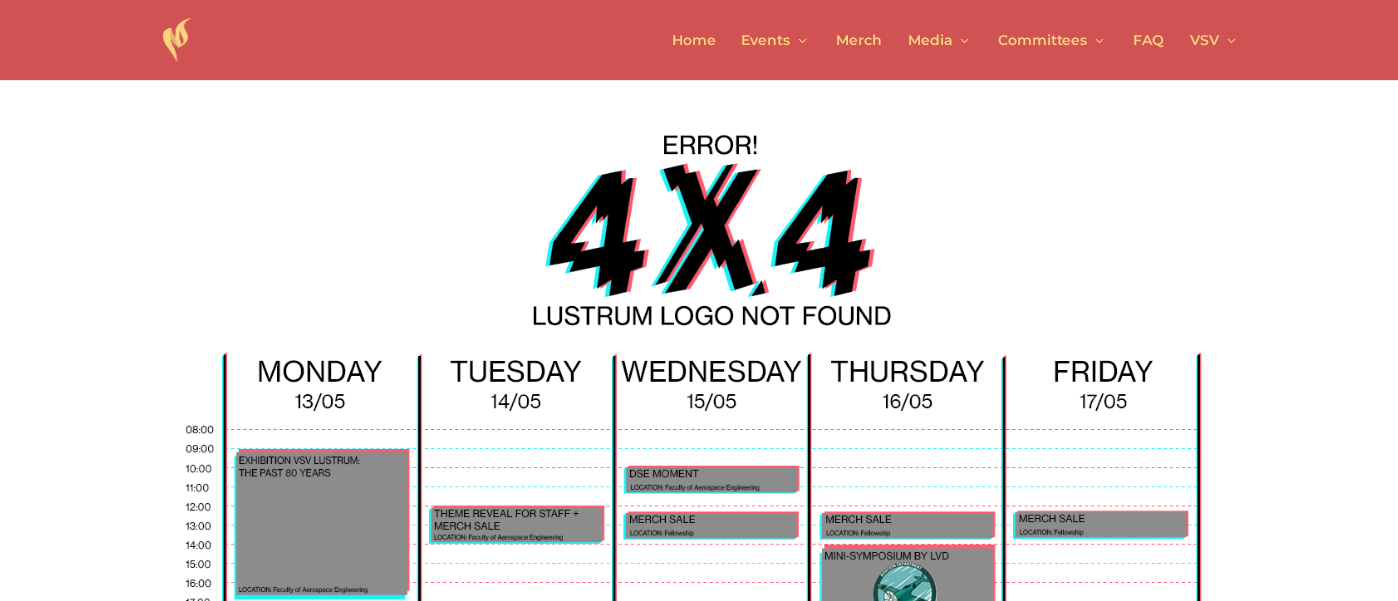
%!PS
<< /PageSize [1398 601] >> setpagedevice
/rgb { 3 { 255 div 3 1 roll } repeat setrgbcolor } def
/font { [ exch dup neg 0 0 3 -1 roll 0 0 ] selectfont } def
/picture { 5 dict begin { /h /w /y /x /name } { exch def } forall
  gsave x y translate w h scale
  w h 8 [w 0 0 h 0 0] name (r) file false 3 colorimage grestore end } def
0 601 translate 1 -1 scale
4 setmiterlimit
255 255 255 rgb
0 0 1398 601 rectfill
230 230 230 rgb
0 80 1398 1 rectfill
208 82 82 rgb
0 0 1398 80 rectfill
(img/1.rgb) 163 18 29 44 picture
(img/2.rgb) 798 38 9 5 picture
(img/2.rgb) 960 38 9 5 picture
(img/2.rgb) 1095 38 9 5 picture
(img/2.rgb) 1227 38 9 5 picture
(img/3.rgb) 185 134 1017 467 picture
/Montserrat-SemiBold 14 font
254 211 125 rgb
[
  [(Home) 672 45]
  [(Events) 741 45]
  [(Merch) 836 45]
  [(Media) 908 45]
  [(Committees) 998 45]
  [(FAQ) 1133 45]
  [(VSV) 1190 45]
] { aload pop moveto show } forall
showpage
